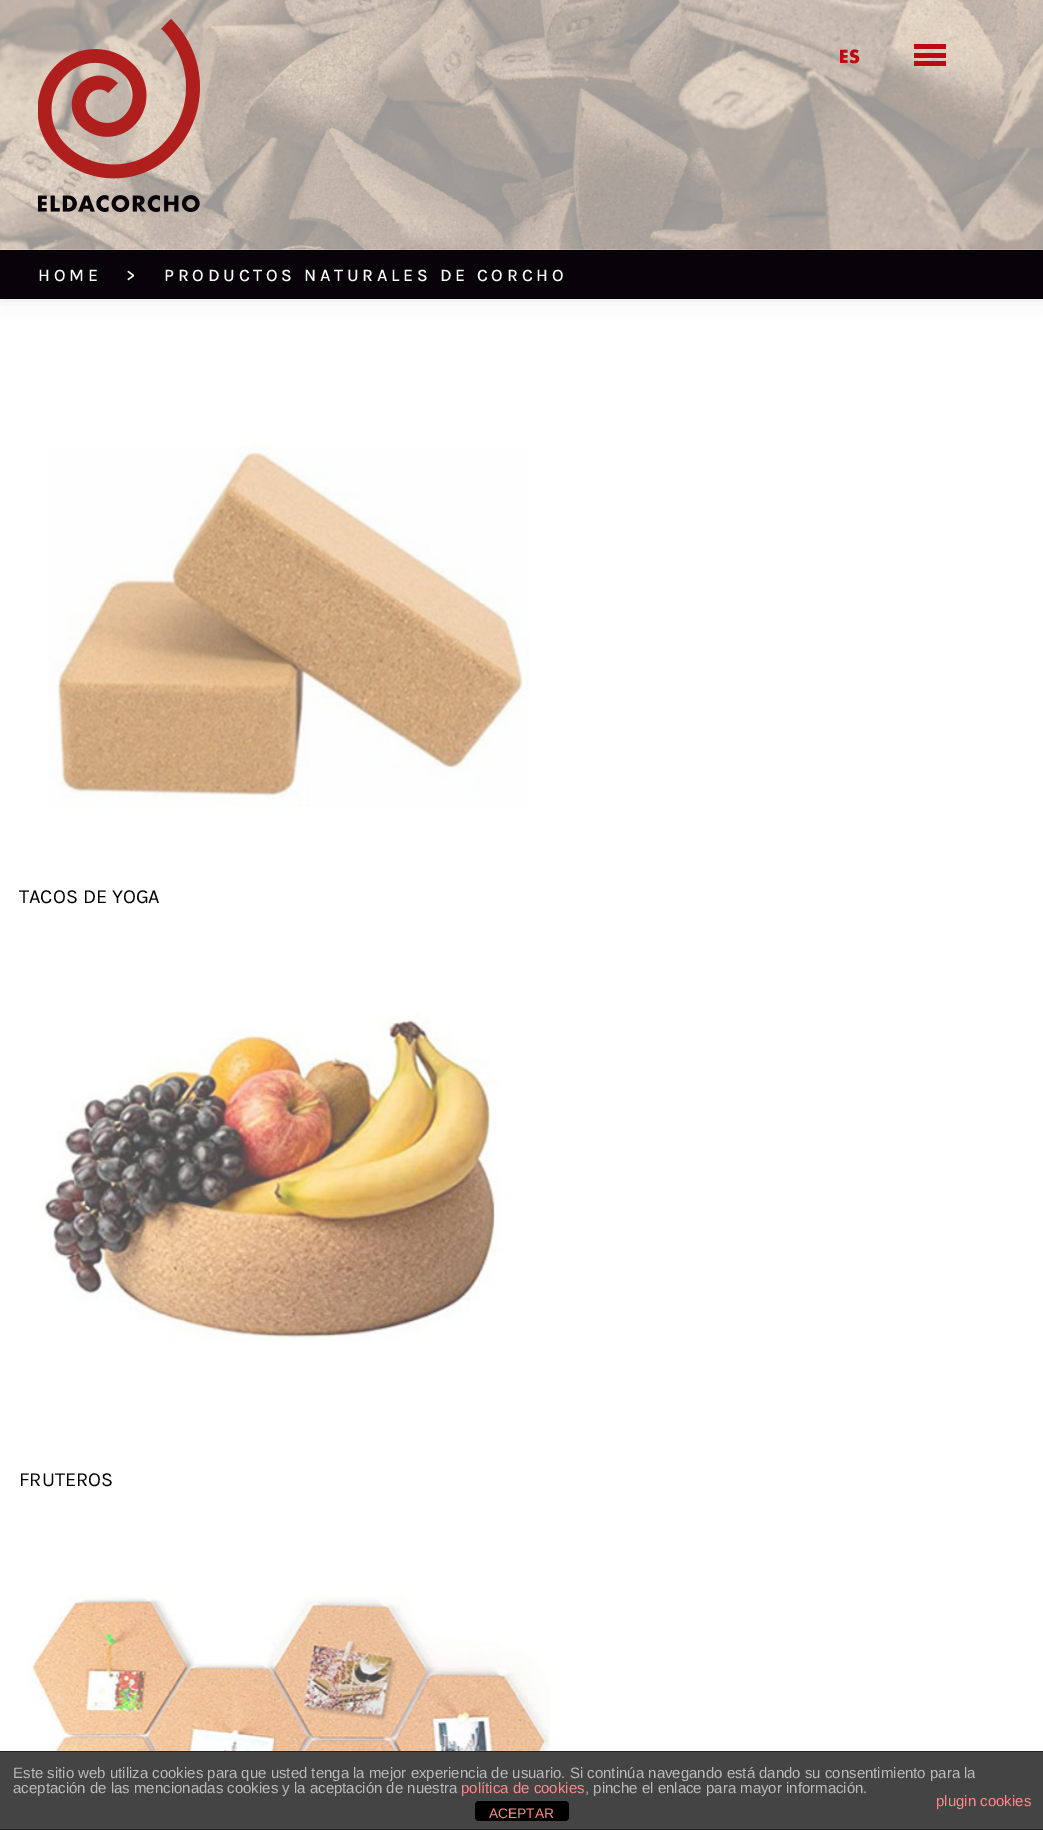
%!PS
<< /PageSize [1043 1830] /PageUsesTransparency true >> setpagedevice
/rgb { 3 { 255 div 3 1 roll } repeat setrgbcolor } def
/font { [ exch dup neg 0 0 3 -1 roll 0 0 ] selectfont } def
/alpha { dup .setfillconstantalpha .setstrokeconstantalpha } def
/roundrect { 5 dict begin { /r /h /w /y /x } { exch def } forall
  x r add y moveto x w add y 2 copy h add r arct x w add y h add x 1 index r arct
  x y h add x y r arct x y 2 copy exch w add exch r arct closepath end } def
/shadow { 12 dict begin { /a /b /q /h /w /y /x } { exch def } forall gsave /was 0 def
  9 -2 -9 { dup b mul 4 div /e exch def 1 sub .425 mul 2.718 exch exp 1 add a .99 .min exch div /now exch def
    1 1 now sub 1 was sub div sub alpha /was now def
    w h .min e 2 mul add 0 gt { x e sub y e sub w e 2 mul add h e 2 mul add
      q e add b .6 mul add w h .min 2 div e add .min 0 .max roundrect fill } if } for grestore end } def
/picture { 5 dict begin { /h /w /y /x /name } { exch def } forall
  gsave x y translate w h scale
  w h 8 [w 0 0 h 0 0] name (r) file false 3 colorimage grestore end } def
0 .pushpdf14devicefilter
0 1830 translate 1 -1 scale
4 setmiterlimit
255 255 255 rgb
0 0 1043 1830 rectfill
7 3 8 rgb
0 250 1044 49 0 9.5 0.1 shadow
(img/2.rgb) 0 0 1043 250 picture
0.6 alpha
251 250 248 rgb
0 0 1043 250 rectfill
1 alpha
(img/1.rgb) 38 19 162 193 picture
[
  [914 44 32 5 191 8 17]
  [914 53 32 5 191 8 17]
  [914 61 32 5 191 8 17]
  [0 250 1043 49 7 3 8]
] { aload pop rgb rectfill } forall
(img/3.rgb) 48 444 481 363 picture
(img/4.rgb) 39 1013 461 328 picture
(img/5.rgb) 19 1595 531 156 picture
[
  [0 1752 1043 77 68 68 68]
  [0 1751 1043 1 34 34 34]
  [0 1829 1043 1 34 34 34]
] { aload pop rgb rectfill } forall
0 0 0 rgb
475 1801 94 20 4 roundrect fill
/Futura-Bold 17.5 font
191 8 17 rgb
839 63 moveto (ES) show
/Karla-Medium 17.5 font
251 250 248 rgb
38 281 moveto 3.75 0 (HOME) ashow
126 281 moveto 3.75 0 (>) ashow
164 281 moveto 3.75 0 (PRODUCTOS NATURALES DE CORCHO) ashow
/Karla-Regular 20 font
0 0 0 rgb
19 903 moveto (TACOS DE YOGA) show
19 1486 moveto (FRUTEROS) show
/LiberationSans-Regular 15 font
187 187 187 rgb
13 1778 moveto (Este sitio web utiliza cookies para que usted tenga la mejor experiencia de usuario. Si continúa navegando está dando su consentimiento para la) show
13 1793 moveto (aceptación de las mencionadas cookies y la aceptación de nuestra) show
255 136 136 rgb
461 1793 moveto (política de cookies) show
187 187 187 rgb
585 1793 moveto (, pinche el enlace para mayor información.) show
255 136 136 rgb
936 1806 moveto (plugin cookies) show
/LiberationSans-Regular 13.75 font
489 1818 moveto (ACEPTAR) show
.poppdf14devicefilter showpage
